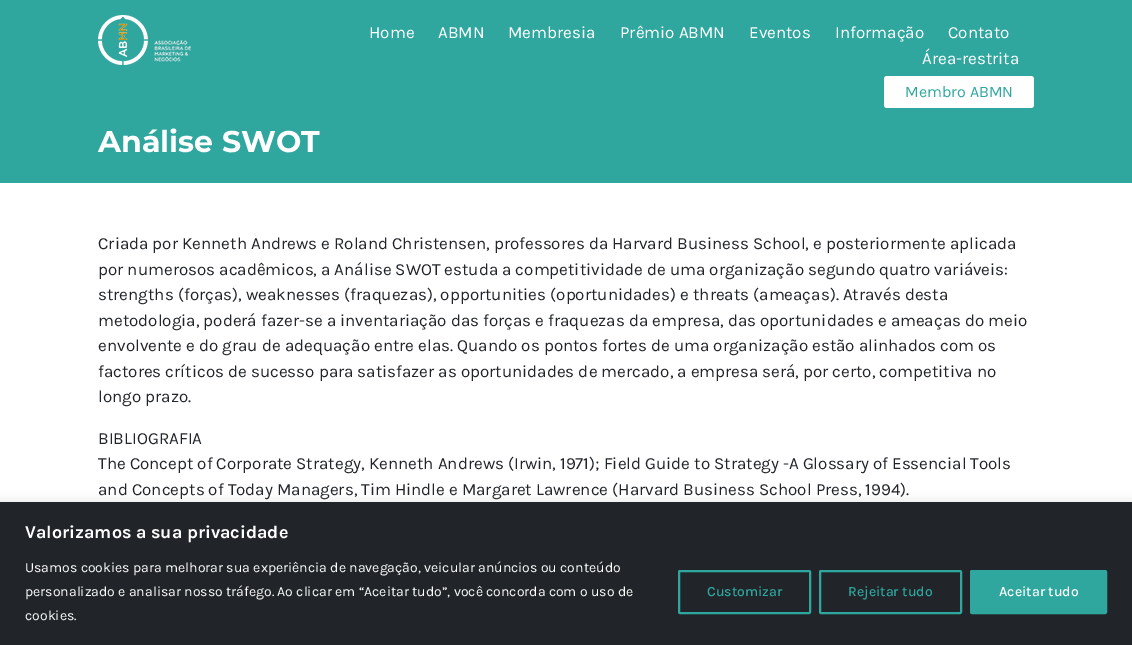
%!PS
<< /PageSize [1132 645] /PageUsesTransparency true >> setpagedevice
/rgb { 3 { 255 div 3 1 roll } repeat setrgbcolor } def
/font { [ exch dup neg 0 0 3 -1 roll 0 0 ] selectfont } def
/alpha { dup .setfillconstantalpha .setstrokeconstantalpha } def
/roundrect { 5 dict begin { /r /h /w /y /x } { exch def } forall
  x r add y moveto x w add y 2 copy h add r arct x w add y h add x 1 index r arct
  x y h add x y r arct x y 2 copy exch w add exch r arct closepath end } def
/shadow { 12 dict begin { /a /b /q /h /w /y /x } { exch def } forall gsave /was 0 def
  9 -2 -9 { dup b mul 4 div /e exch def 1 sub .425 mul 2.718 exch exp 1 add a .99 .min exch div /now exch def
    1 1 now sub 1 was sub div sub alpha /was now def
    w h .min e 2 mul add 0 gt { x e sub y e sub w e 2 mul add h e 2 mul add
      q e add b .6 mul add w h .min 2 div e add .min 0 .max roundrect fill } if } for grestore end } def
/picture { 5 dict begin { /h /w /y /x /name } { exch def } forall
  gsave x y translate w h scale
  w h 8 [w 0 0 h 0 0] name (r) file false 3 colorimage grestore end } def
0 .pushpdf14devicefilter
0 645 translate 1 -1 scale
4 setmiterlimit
255 255 255 rgb
0 0 1132 645 rectfill
47 167 159 rgb
0 0 1132 183 rectfill
(img/1.rgb) 98 15 93 50 picture
255 255 255 rgb
884 76 150 32 3 roundrect fill
172 171 171 rgb
0 501 1132 143 0 5 0.3 shadow
33 37 41 rgb
0 502 1132 143 rectfill
47 167 159 rgb
2 setlinewidth
679 571 131 42 1 roundrect stroke
820 571 141 42 1 roundrect stroke
971 571 135 42 1 roundrect gsave fill grestore
stroke
/Karla-Regular 17 font
255 255 255 rgb
[
  [(Home) 369 38]
  [(ABMN) 438 38]
  [(Membresia) 508 38]
  [(Prêmio ABMN) 620 38]
  [(Eventos) 749 38]
  [(Informação) 835 38]
  [(Contato) 948 38]
  [(Área-restrita) 922 64]
] { aload pop moveto show } forall
/Karla-Regular 16 font
47 167 159 rgb
905 97 moveto (Membro ABMN) show
/Montserrat-Bold 30 font
255 255 255 rgb
98 152 moveto (Análise SWOT) show
/Karla-Regular 17 font
33 37 41 rgb
[
  [(Criada por Kenneth Andrews e Roland Christensen, professores da Harvard Business School, e posteriormente aplicada) 98 249]
  [(por numerosos acadêmicos, a Análise SWOT estuda a competitividade de uma organização segundo quatro variáveis:) 98 275]
  [(strengths \(forças\), weaknesses \(fraquezas\), opportunities \(oportunidades\) e threats \(ameaças\). Através desta) 98 300]
  [(metodologia, poderá fazer-se a inventariação das forças e fraquezas da empresa, das oportunidades e ameaças do meio) 98 326]
  [(envolvente e do grau de adequação entre elas. Quando os pontos fortes de uma organização estão alinhados com os) 98 351]
  [(factores críticos de sucesso para satisfazer as oportunidades de mercado, a empresa será, por certo, competitiva no) 98 377]
  [(longo prazo.) 98 402]
  [(BIBLIOGRAFIA) 98 444]
  [(The Concept of Corporate Strategy, Kenneth Andrews \(Irwin, 1971\); Field Guide to Strategy -A Glossary of Essencial Tools) 98 469]
  [(and Concepts of Today Managers, Tim Hindle e Margaret Lawrence \(Harvard Business School Press, 1994\).) 98 495]
] { aload pop moveto show } forall
/Karla-Bold 18 font
255 255 255 rgb
25 538 moveto (Valorizamos a sua privacidade) show
/Karla-Regular 14 font
[
  [(Usamos cookies para melhorar sua experiência de navegação, veicular anúncios ou conteúdo) 25 572]
  [(personalizado e analisar nosso tráfego. Ao clicar em “Aceitar tudo”, você concorda com o uso de) 25 596]
  [(cookies.) 25 620]
] { aload pop moveto show } forall
/Karla-Medium 14 font
47 167 159 rgb
707 596 moveto (Customizar) show
848 596 moveto (Rejeitar tudo) show
255 255 255 rgb
999 596 moveto (Aceitar tudo) show
.poppdf14devicefilter showpage
